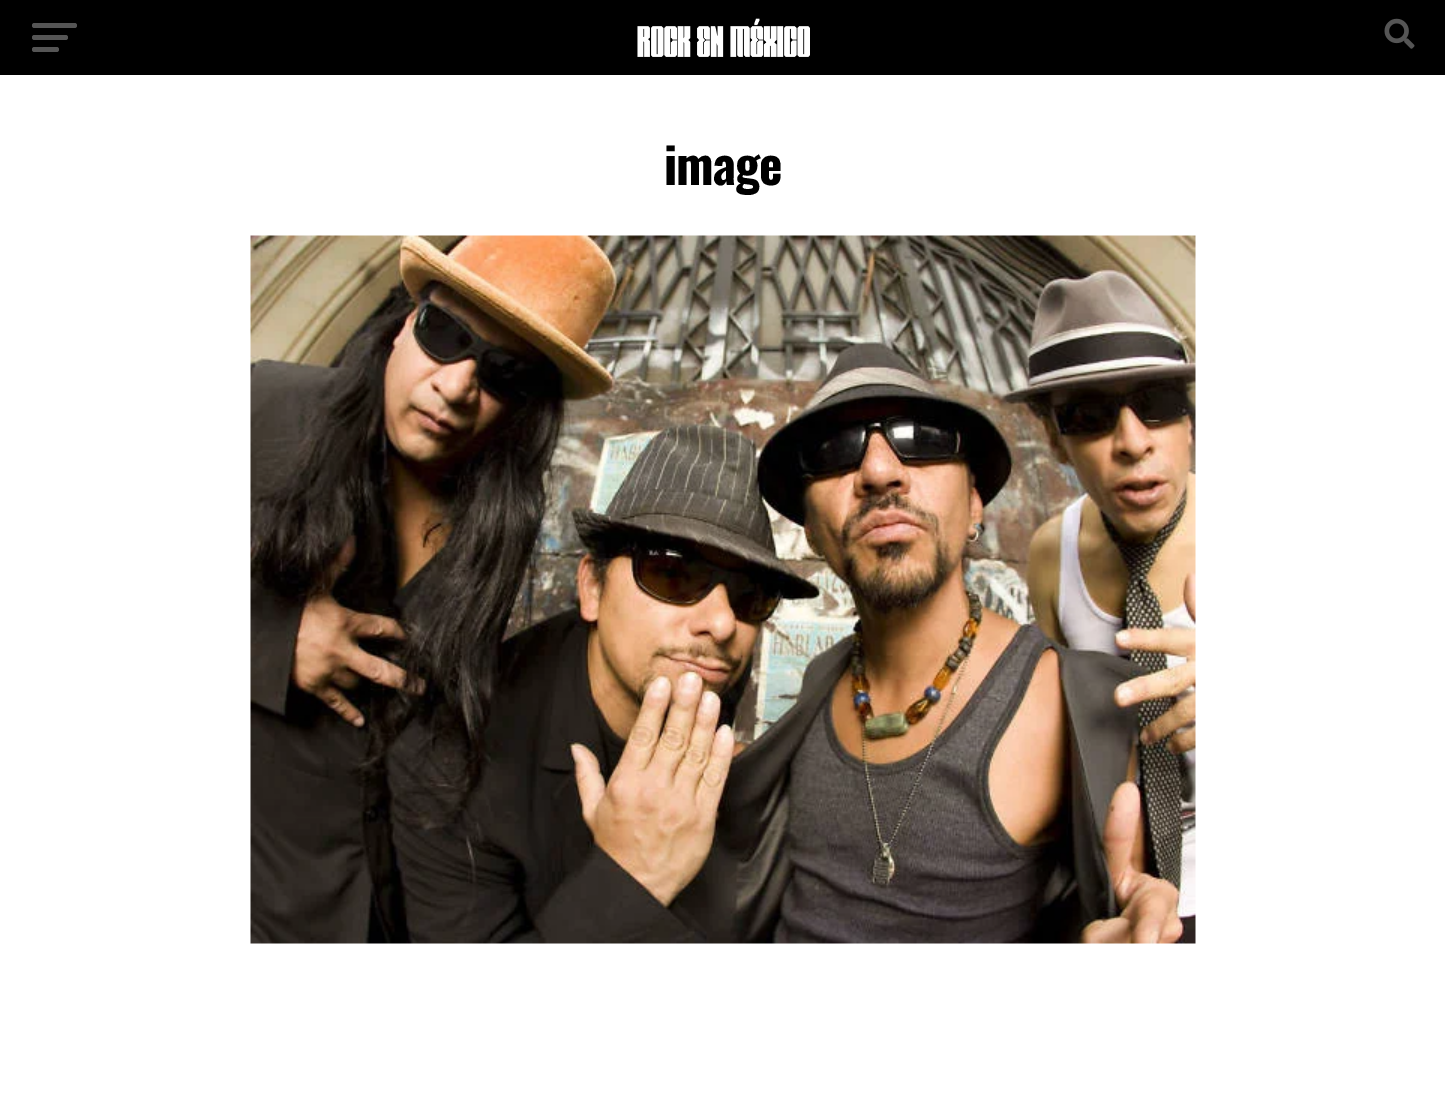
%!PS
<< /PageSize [1445 1095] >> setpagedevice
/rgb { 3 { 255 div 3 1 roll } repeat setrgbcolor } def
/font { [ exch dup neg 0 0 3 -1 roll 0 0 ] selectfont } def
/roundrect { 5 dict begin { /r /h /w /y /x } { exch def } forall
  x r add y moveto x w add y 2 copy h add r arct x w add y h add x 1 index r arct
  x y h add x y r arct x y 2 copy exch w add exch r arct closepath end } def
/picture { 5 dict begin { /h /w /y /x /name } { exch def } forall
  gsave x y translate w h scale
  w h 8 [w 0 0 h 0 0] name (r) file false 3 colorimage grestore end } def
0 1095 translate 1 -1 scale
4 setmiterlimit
255 255 255 rgb
0 0 1445 1095 rectfill
0 0 0 rgb
0 0 1445 75 rectfill
85 85 85 rgb
32 23 45 5 2.5 roundrect fill
32 35 36 5 2.5 roundrect fill
32 47 27 5 2.5 roundrect fill
(img/1.rgb) 637 18 173 39 picture
(img/2.rgb) 1384 18 31 31 picture
(img/3.rgb) 250 235 946 709 picture
/Oswald-Bold 50 font
0 0 0 rgb
664 185 moveto -1 0 (image) ashow
showpage
